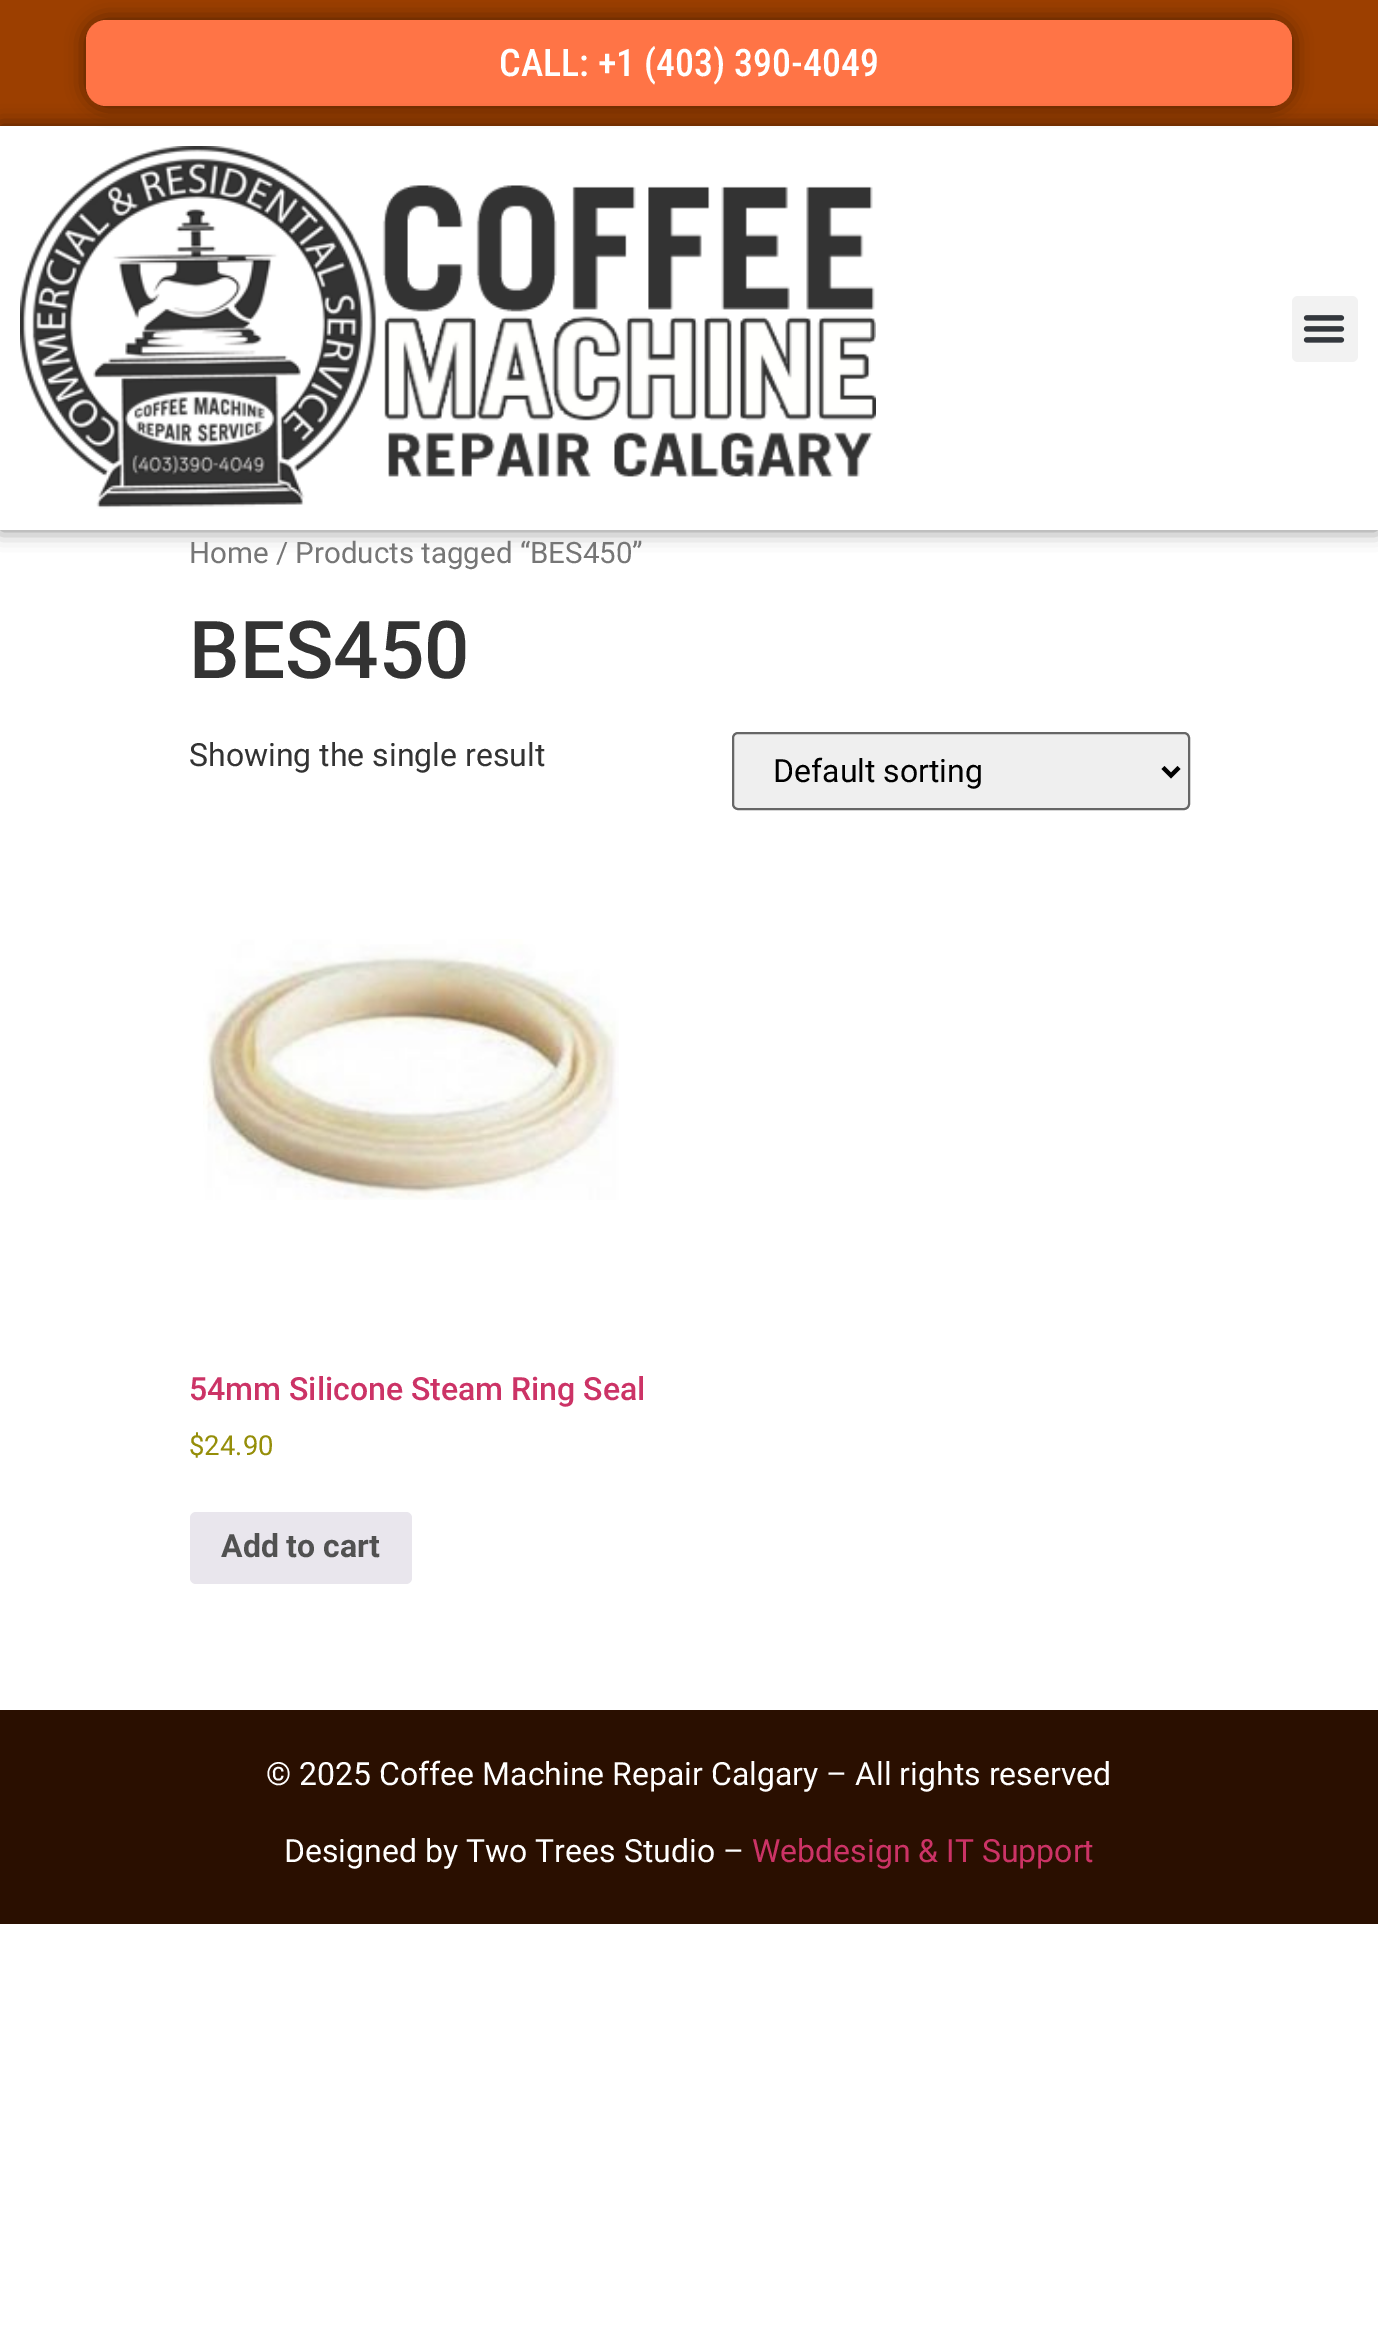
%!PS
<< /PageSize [1378 2328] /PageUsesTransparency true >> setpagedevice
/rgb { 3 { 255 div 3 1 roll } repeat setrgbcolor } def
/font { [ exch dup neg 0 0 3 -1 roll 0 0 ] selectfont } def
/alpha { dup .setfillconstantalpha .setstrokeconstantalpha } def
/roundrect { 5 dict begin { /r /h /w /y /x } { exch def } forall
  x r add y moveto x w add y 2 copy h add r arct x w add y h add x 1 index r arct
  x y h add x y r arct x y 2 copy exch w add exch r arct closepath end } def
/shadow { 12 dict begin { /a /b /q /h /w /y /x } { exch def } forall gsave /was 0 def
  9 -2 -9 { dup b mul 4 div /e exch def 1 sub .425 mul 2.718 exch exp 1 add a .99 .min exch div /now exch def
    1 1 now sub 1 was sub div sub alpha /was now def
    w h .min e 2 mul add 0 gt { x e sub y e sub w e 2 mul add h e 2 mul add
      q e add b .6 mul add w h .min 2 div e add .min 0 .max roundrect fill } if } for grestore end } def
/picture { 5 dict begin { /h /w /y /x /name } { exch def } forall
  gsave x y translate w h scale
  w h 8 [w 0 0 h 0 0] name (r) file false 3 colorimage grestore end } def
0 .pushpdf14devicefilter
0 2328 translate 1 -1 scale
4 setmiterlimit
255 255 255 rgb
0 0 1378 2328 rectfill
156 63 0 rgb
0 0 1378 126 rectfill
0 0 0 rgb
86 20 1206 86 20 10 0.5 shadow
255 116 70 rgb
86 20 1206 86 20 roundrect fill
gsave
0 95 moveto 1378 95 lineto 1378 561 lineto 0 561 lineto closepath 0 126 moveto 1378 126 lineto 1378 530 lineto 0 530 lineto closepath eoclip newpath
0 0 0 rgb
0 126 1378 404 0 10 0.5 shadow
grestore
(img/1.rgb) 20 146 856 363 picture
242 242 242 rgb
1292 296 66 66 6 roundrect fill
(img/2.rgb) 1303 315 42 28 picture
239 239 239 rgb
733 733 456 76 5 roundrect gsave fill grestore
102 102 102 rgb
2 setlinewidth
stroke
0 0 0 rgb
4 setlinewidth
1163 767.5 moveto 1171 775.5 lineto 1179 767.5 lineto stroke
(img/3.rgb) 203 939 416 261 picture
233 230 237 rgb
190 1512 222 72 6 roundrect fill
42 15 0 rgb
0 1710 1378 214 rectfill
/RobotoCondensed-Medium 38 font
255 255 255 rgb
499 76 moveto (CALL: +1 \(403\) 390-4049) show
/Roboto-Regular 29.5 font
118 118 118 rgb
189 563 moveto (Home / Products tagged “BES450”) show
/Roboto-Medium 80 font
51 51 51 rgb
189 678 moveto (BES450) show
/Roboto-Regular 32 font
189 766 moveto (Showing the single result) show
0 0 0 rgb
773 782 moveto (Default sorting) show
/Roboto-Medium 32 font
204 51 102 rgb
189 1400 moveto (54mm Silicone Steam Ring Seal) show
/Roboto-Regular 27.5 font
149 142 9 rgb
189 1455 moveto ($24.90) show
/Roboto-Bold 32 font
81 81 81 rgb
221 1557 moveto (Add to cart) show
/Roboto-Regular 32 font
255 255 255 rgb
266 1785 moveto (© 2025 Coffee Machine Repair Calgary – All rights reserved) show
284 1862 moveto (Designed by Two Trees Studio –) show
204 51 102 rgb
752 1862 moveto (Webdesign & IT Support) show
.poppdf14devicefilter showpage
